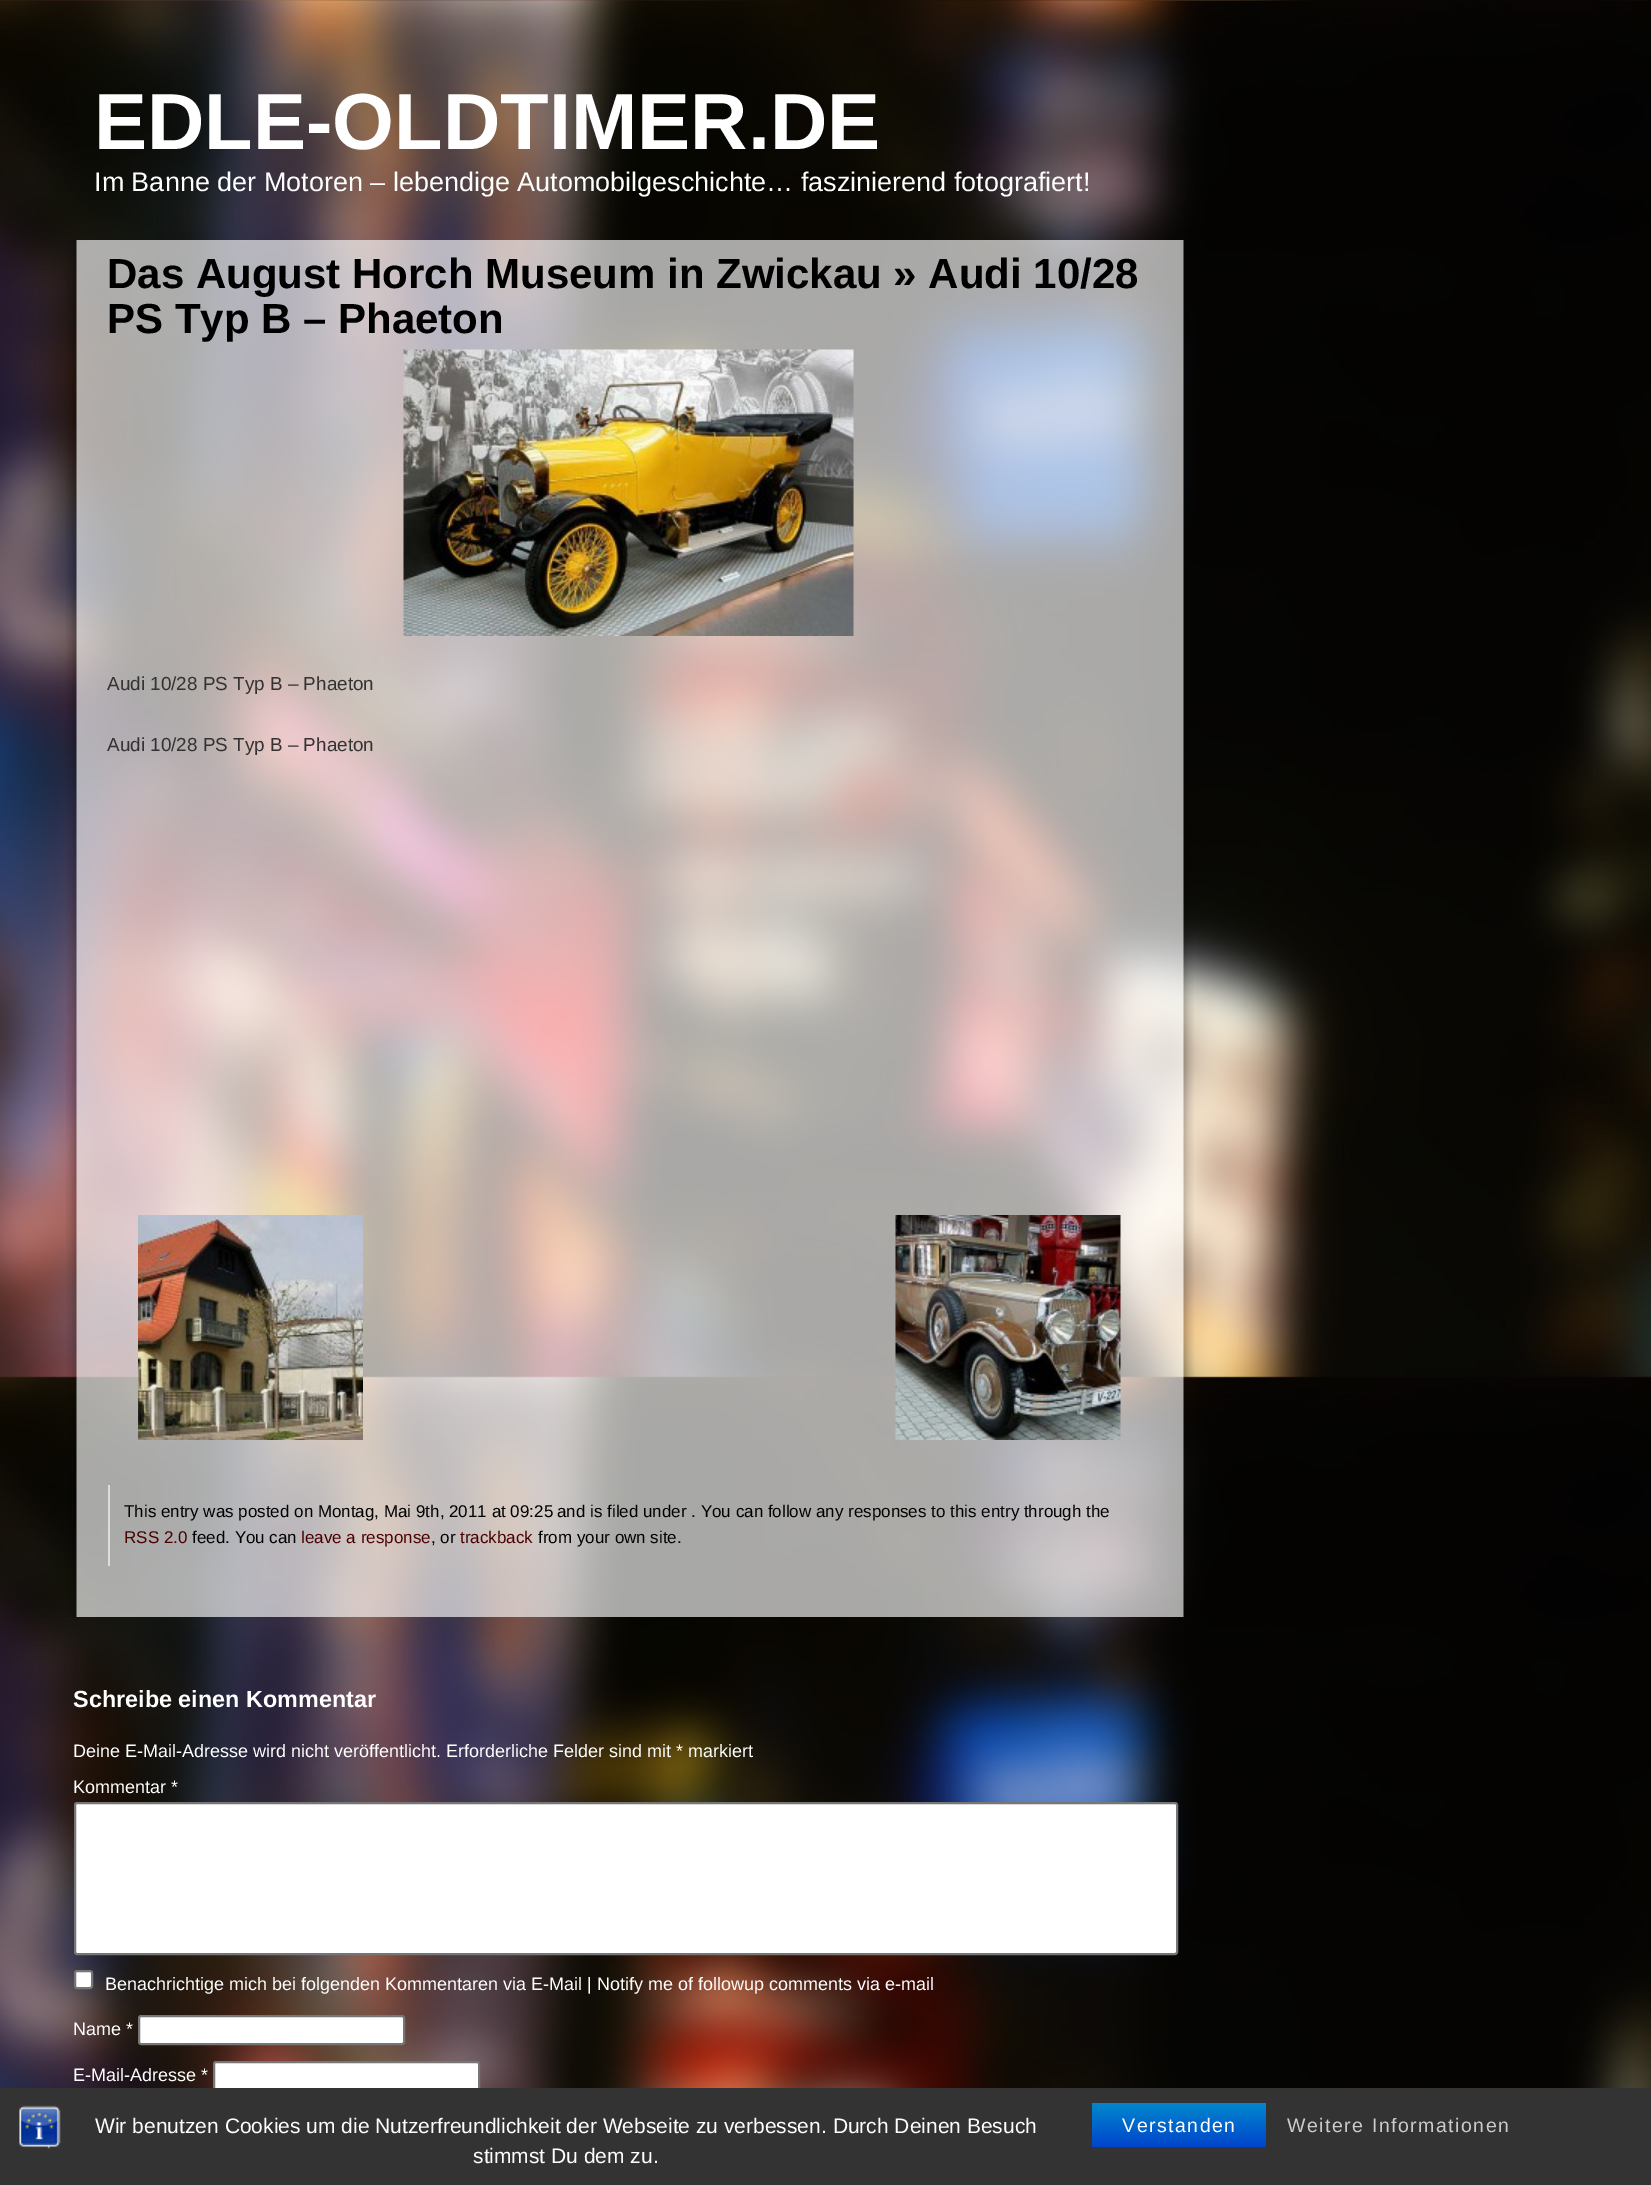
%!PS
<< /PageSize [1651 2185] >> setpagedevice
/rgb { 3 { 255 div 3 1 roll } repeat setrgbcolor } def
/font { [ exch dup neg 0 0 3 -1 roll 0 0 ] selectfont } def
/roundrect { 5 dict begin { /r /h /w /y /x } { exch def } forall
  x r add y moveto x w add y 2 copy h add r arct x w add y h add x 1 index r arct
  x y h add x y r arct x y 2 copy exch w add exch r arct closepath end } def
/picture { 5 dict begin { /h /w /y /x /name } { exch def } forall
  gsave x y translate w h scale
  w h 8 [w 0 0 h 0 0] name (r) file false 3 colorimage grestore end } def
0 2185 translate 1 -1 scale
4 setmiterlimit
255 255 255 rgb
0 0 1651 2185 rectfill
(img/1.rgb) 0 0 1651 2088 picture
(img/2.rgb) 66 240 1128 1377 picture
(img/3.rgb) 403 349 451 287 picture
(img/4.rgb) 138 1215 225 225 picture
(img/5.rgb) 895 1215 226 225 picture
221 221 221 rgb
108 1485 2 81 rectfill
255 255 255 rgb
75 1803 1102 151 2 roundrect gsave fill grestore
118 118 118 rgb
2 setlinewidth
stroke
255 255 255 rgb
75 1971 17 17 2 roundrect gsave fill grestore
118 118 118 rgb
stroke
255 255 255 rgb
139 2016 265 28 2 roundrect gsave fill grestore
118 118 118 rgb
stroke
255 255 255 rgb
214 2062 265 28 2 roundrect gsave fill grestore
118 118 118 rgb
stroke
51 51 51 rgb
0 2088 1651 97 rectfill
(img/6.rgb) 19 2105 42 44 picture
gsave 1092 2103 moveto 1266 2103 lineto 1266 2147 lineto 1092 2147 lineto closepath clip newpath
<< /ShadingType 2 /ColorSpace /DeviceRGB /Coords [1179 2103 1179 2147] /Extend [true true] /Function << /FunctionType 2 /Domain [0 1] /C0 [0 0.533 0.8] /C1 [0 0.267 0.8] /N 1 >> >> shfill grestore
/LiberationSans-Bold 79.5 font
255 255 255 rgb
94 149 moveto (EDLE-OLDTIMER.DE) show
/LiberationSans-Regular 27 font
94 191 moveto (Im Banne der Motoren – lebendige Automobilgeschichte… faszinierend fotografiert!) show
/LiberationSans-Bold 42 font
0 0 0 rgb
107 288 moveto (Das August Horch Museum in Zwickau » Audi 10/28) show
107 333 moveto (PS Typ B – Phaeton) show
/LiberationSans-Regular 18.9 font
51 51 51 rgb
107 690 moveto (Audi 10/28 PS Typ B – Phaeton) show
107 751 moveto (Audi 10/28 PS Typ B – Phaeton) show
/LiberationSans-Regular 17 font
0 0 0 rgb
124 1517 moveto (This entry was posted on Montag, Mai 9th, 2011 at 09:25) show
557 1517 moveto (and is filed under . You can follow any responses to this entry through the) show
74 0 0 rgb
124 1543 moveto (RSS 2.0) show
0 0 0 rgb
192 1543 moveto (feed. You can) show
74 0 0 rgb
301 1543 moveto (leave a response) show
0 0 0 rgb
431 1543 moveto (, or) show
74 0 0 rgb
460 1543 moveto (trackback) show
0 0 0 rgb
538 1543 moveto (from your own site.) show
/LiberationSans-Bold 23.4 font
255 255 255 rgb
73 1707 moveto (Schreibe einen Kommentar) show
/LiberationSans-Regular 18 font
[
  [(Deine E-Mail-Adresse wird nicht veröffentlicht. Erforderliche Felder sind mit * markiert) 73 1757]
  [(Kommentar *) 73 1793]
  [(Benachrichtige mich bei folgenden Kommentaren via E-Mail | Notify me of followup comments via e-mail) 105 1990]
  [(Name *) 73 2035]
  [(E-Mail-Adresse *) 73 2081]
] { aload pop moveto show } forall
/LiberationSans-Regular 21 font
95 2133 moveto (Wir benutzen Cookies um die Nutzerfreundlichkeit der Webseite zu verbessen. Durch Deinen Besuch) show
473 2163 moveto (stimmst Du dem zu.) show
/LiberationSans-Regular 19.5 font
1122 2132 moveto 1.5 0 (Verstanden) ashow
204 204 204 rgb
1287 2132 moveto 1.5 0 (Weitere Informationen) ashow
showpage
